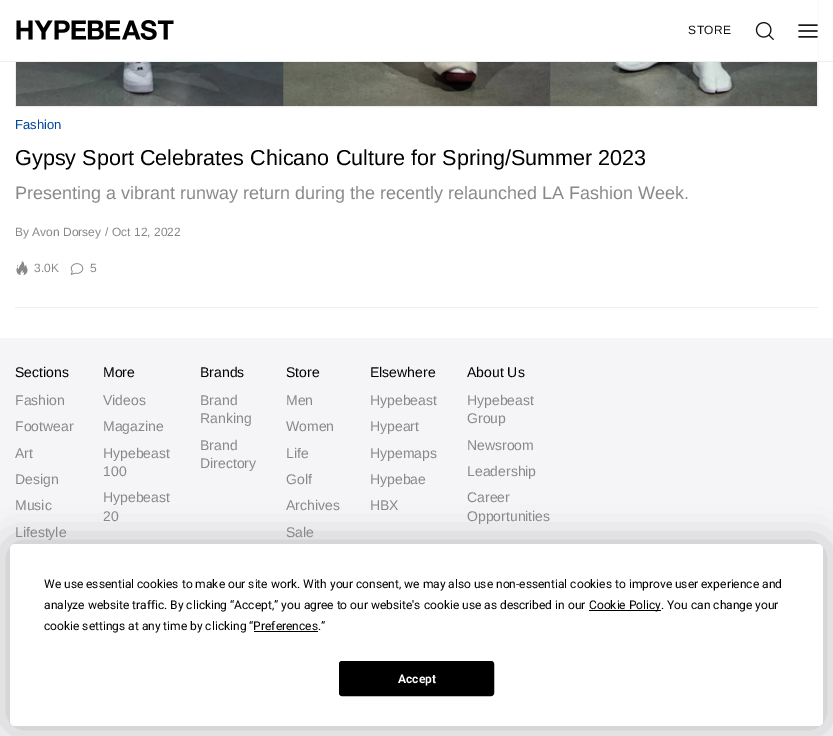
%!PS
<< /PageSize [833 736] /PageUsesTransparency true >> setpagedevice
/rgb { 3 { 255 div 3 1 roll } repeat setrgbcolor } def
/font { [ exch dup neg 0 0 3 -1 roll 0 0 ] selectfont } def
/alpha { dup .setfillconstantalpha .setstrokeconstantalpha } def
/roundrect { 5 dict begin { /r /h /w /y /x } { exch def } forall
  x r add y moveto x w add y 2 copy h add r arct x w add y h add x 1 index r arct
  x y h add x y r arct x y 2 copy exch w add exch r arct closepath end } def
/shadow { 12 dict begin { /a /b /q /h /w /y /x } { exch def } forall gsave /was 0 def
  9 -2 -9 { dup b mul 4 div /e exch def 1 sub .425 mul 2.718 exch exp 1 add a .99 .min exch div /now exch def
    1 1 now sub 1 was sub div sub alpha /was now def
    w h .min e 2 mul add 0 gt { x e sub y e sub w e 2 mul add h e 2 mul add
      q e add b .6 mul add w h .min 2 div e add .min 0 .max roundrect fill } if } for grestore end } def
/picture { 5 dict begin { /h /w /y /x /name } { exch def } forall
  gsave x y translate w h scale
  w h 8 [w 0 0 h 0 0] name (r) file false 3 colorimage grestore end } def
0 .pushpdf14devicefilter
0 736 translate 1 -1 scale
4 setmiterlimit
255 255 255 rgb
0 0 833 736 rectfill
238 238 238 rgb
15.5 -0.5 802 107 rectstroke
255 255 255 rgb
15 0 803 61 rectfill
238 238 238 rgb
0 61 833 1 rectfill
(img/1.rgb) 16 20 158 20 picture
(img/2.rgb) 755 22 19 19 picture
(img/3.rgb) 798 24 20 14 picture
(img/4.rgb) 16 62 801 44 picture
(img/5.rgb) 16 261 12 15 picture
(img/6.rgb) 70 263 14 12 picture
15 307 803 1 rectfill
245 245 247 rgb
0 338 833 398 rectfill
0 0 0 rgb
10 544 813 182 5 17.5 0.25 shadow
255 255 255 rgb
10 544 813 182 5 roundrect fill
0 0 0 rgb
589 610 72 1 rectfill
254 631 64 1 rectfill
339.5 661.5 154 34 2.5 roundrect gsave fill grestore
stroke
/LiberationSans-Regular 12 font
17 17 17 rgb
688 34 moveto 0.5 0 (STORE) ashow
/LiberationSans-Regular 13 font
0 70 155 rgb
15 129 moveto (Fashion) show
/LiberationSans-Regular 21.6 font
0 0 0 rgb
15 165 moveto (Gypsy Sport Celebrates Chicano Culture for Spring/Summer 2023) show
/LiberationSans-Regular 18 font
136 136 136 rgb
15 199 moveto (Presenting a vibrant runway return during the recently relaunched LA Fashion Week.) show
/LiberationSans-Regular 12 font
[
  [(By Avon Dorsey) 15 236]
  [(/) 105 236]
  [(Oct 12, 2022) 112 236]
  [(3.0K) 34 272]
  [(5) 90 272]
] { aload pop moveto show } forall
/LiberationSans-Regular 14 font
0 0 0 rgb
15 377 moveto (Sections) show
136 136 136 rgb
[
  [(Fashion) 15 405]
  [(Footwear) 15 431]
  [(Art) 15 458]
  [(Design) 15 484]
  [(Music) 15 510]
  [(Lifestyle) 15 537]
] { aload pop moveto show } forall
0 0 0 rgb
103 377 moveto (More) show
136 136 136 rgb
[
  [(Videos) 103 405]
  [(Magazine) 103 431]
  [(Hypebeast) 103 458]
  [(100) 103 476]
  [(Hypebeast) 103 502]
  [(20) 103 521]
] { aload pop moveto show } forall
0 0 0 rgb
200 377 moveto (Brands) show
136 136 136 rgb
[
  [(Brand) 200 405]
  [(Ranking) 200 423]
  [(Brand) 200 450]
  [(Directory) 200 468]
] { aload pop moveto show } forall
0 0 0 rgb
286 377 moveto (Store) show
136 136 136 rgb
[
  [(Men) 286 405]
  [(Women) 286 431]
  [(Life) 286 458]
  [(Golf) 286 484]
  [(Archives) 286 510]
  [(Sale) 286 537]
] { aload pop moveto show } forall
0 0 0 rgb
370 377 moveto (Elsewhere) show
136 136 136 rgb
[
  [(Hypebeast) 370 405]
  [(Hypeart) 370 431]
  [(Hypemaps) 370 458]
  [(Hypebae) 370 484]
  [(HBX) 370 510]
] { aload pop moveto show } forall
0 0 0 rgb
467 377 moveto (About Us) show
136 136 136 rgb
[
  [(Hypebeast) 467 405]
  [(Group) 467 423]
  [(Newsroom) 467 450]
  [(Leadership) 467 476]
  [(Career) 467 502]
  [(Opportunities) 467 521]
] { aload pop moveto show } forall
/Roboto-Regular 12 font
0 0 0 rgb
[
  [(We use essential cookies to make our site work. With your consent, we may also use non-essential cookies to improve user experience and) 44 588]
  [(analyze website traffic. By clicking “Accept,” you agree to our website's cookie use as described in our) 44 609]
  [(Cookie Policy. You can change your) 589 609]
  [(cookie settings at any time by clicking “Preferences.”) 44 630]
] { aload pop moveto show } forall
/Roboto-Bold 12 font
255 255 255 rgb
398 683 moveto (Accept) show
.poppdf14devicefilter showpage
